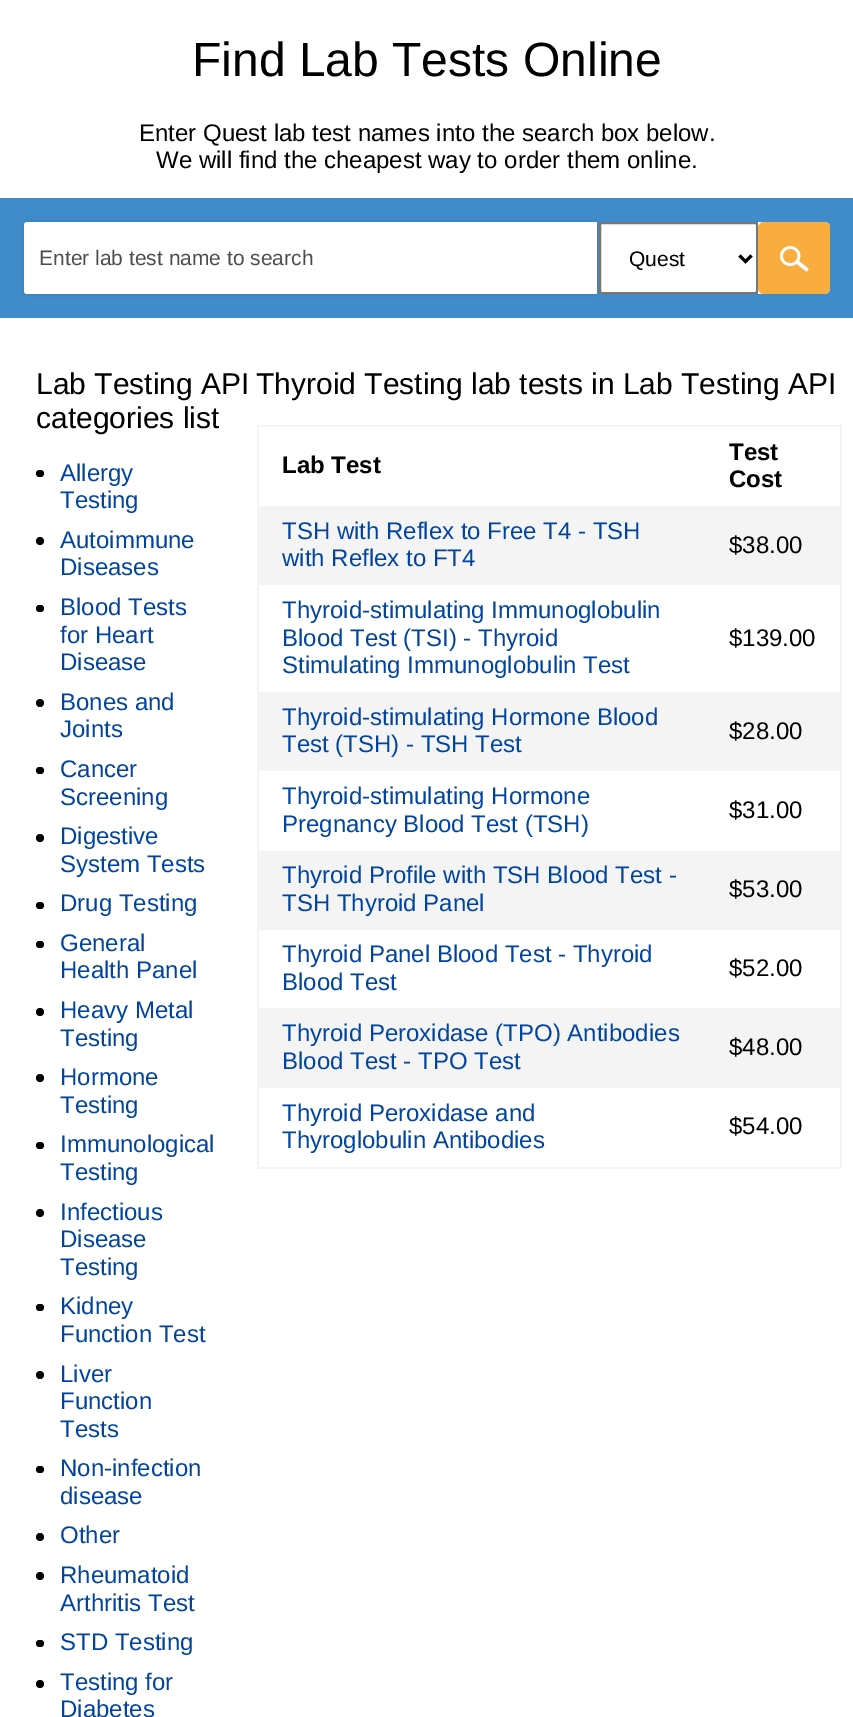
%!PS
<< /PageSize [853 1717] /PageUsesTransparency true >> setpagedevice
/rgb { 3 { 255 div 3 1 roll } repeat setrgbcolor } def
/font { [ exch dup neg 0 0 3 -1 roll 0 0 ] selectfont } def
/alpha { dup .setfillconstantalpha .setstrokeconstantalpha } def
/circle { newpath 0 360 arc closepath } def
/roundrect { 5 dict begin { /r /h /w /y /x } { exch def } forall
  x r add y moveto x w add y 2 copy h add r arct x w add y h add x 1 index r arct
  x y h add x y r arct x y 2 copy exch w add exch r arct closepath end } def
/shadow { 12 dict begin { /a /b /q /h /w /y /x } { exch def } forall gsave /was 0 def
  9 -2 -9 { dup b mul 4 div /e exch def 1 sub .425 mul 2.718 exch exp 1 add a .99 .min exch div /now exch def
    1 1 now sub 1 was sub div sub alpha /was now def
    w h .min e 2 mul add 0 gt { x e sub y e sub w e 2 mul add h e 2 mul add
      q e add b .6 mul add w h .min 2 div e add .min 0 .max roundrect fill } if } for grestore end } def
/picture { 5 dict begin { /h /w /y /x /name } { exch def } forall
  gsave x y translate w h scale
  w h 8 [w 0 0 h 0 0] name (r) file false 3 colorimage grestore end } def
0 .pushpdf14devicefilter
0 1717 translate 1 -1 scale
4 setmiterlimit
255 255 255 rgb
0 0 853 1717 rectfill
64 139 201 rgb
0 198 853 120 rectfill
255 255 255 rgb
600 223 157 70 2 roundrect gsave fill grestore
118 118 118 rgb
2 setlinewidth
stroke
0 0 0 rgb
24 222 573 72 3 2 0.1 shadow
255 255 255 rgb
27 222 moveto 597 222 lineto 597 294 lineto 27 294 lineto 25.5 294 24 292.5 24 291 curveto 24 225 lineto 24 223.5 25.5 222 27 222 curveto closepath fill
0 0 0 rgb
3 setlinewidth
739.5 255.5 moveto 745.5 261.5 lineto 751.5 255.5 lineto stroke
255 255 255 rgb
758 222 moveto 824 222 lineto 827.5 222 830 224.5 830 228 curveto 830 288 lineto 830 291.5 827.5 294 824 294 curveto 758 294 lineto closepath fill
250 173 63 rgb
758 222 72 72 6 roundrect fill
(img/1.rgb) 780 246 29 26 picture
0 0 0 rgb
36 470 8 7 3.5 roundrect fill
40 541 4 circle fill
36 605 8 7 3.5 roundrect fill
40 703 4 circle fill
36 767 8 7 3.5 roundrect fill
40 838 4 circle fill
36 902 8 7 3.5 roundrect fill
36 941 8 7 3.5 roundrect fill
40 1012 4 circle fill
40 1078 4 circle fill
36 1142 8 7 3.5 roundrect fill
40 1213 4 circle fill
36 1304 8 7 3.5 roundrect fill
40 1375 4 circle fill
36 1466 8 7 3.5 roundrect fill
40 1537 4 circle fill
40 1576 4 circle fill
36 1640 8 7 3.5 roundrect fill
40 1684 4 circle fill
[
  [257 425 585 2 244 244 244]
  [840 425 2 744 244 244 244]
  [257 1167 585 2 244 244 244]
  [257 425 2 744 244 244 244]
  [259 506 581 79 244 244 244]
  [259 692 581 79 244 244 244]
  [259 851 581 79 244 244 244]
  [259 1008 581 80 244 244 244]
] { aload pop rgb rectfill } forall
/LiberationSans-Regular 48 font
0 0 0 rgb
192 76 moveto (Find Lab Tests Online) show
/LiberationSans-Regular 24 font
139 141 moveto (Enter Quest lab test names into the search box below.) show
156 168 moveto (We will find the cheapest way to order them online.) show
/LiberationSans-Regular 21 font
77 77 79 rgb
39 265 moveto (Enter lab test name to search) show
0 0 0 rgb
629 266 moveto (Quest) show
/LiberationSans-Regular 30 font
36 394 moveto (Lab Testing API) show
36 428 moveto (categories list) show
/LiberationSans-Regular 24 font
0 68 158 rgb
[
  [(Allergy) 60 481]
  [(Testing) 60 508]
  [(Autoimmune) 60 548]
  [(Diseases) 60 575]
  [(Blood Tests) 60 615]
  [(for Heart) 60 643]
  [(Disease) 60 670]
  [(Bones and) 60 710]
  [(Joints) 60 737]
  [(Cancer) 60 777]
  [(Screening) 60 805]
  [(Digestive) 60 844]
  [(System Tests) 60 872]
  [(Drug Testing) 60 911]
  [(General) 60 951]
  [(Health Panel) 60 978]
  [(Heavy Metal) 60 1018]
  [(Testing) 60 1046]
  [(Hormone) 60 1085]
  [(Testing) 60 1113]
  [(Immunological) 60 1152]
  [(Testing) 60 1180]
  [(Infectious) 60 1220]
  [(Disease) 60 1247]
  [(Testing) 60 1275]
  [(Kidney) 60 1314]
  [(Function Test) 60 1342]
  [(Liver) 60 1382]
  [(Function) 60 1409]
  [(Tests) 60 1437]
  [(Non-infection) 60 1476]
  [(disease) 60 1504]
  [(Other) 60 1543]
  [(Rheumatoid) 60 1583]
  [(Arthritis Test) 60 1611]
  [(STD Testing) 60 1650]
  [(Testing for) 60 1690]
  [(Diabetes) 60 1717]
] { aload pop moveto show } forall
/LiberationSans-Regular 30 font
0 0 0 rgb
256 394 moveto (Thyroid Testing lab tests in Lab Testing API) show
/LiberationSans-Bold 24 font
[
  [(Lab Test) 282 473]
  [(Test) 729 460]
  [(Cost) 729 487]
] { aload pop moveto show } forall
/LiberationSans-Regular 24 font
0 68 158 rgb
282 539 moveto (TSH with Reflex to Free T4 - TSH) show
282 566 moveto (with Reflex to FT4) show
0 0 0 rgb
729 553 moveto ($38.00) show
0 68 158 rgb
[
  [(Thyroid-stimulating Immunoglobulin) 282 618]
  [(Blood Test \(TSI\) - Thyroid) 282 646]
  [(Stimulating Immunoglobulin Test) 282 673]
] { aload pop moveto show } forall
0 0 0 rgb
729 646 moveto ($139.00) show
0 68 158 rgb
282 725 moveto (Thyroid-stimulating Hormone Blood) show
282 752 moveto (Test \(TSH\) - TSH Test) show
0 0 0 rgb
729 739 moveto ($28.00) show
0 68 158 rgb
282 804 moveto (Thyroid-stimulating Hormone) show
282 832 moveto (Pregnancy Blood Test \(TSH\)) show
0 0 0 rgb
729 818 moveto ($31.00) show
0 68 158 rgb
282 883 moveto (Thyroid Profile with TSH Blood Test -) show
282 911 moveto (TSH Thyroid Panel) show
0 0 0 rgb
729 897 moveto ($53.00) show
0 68 158 rgb
282 962 moveto (Thyroid Panel Blood Test - Thyroid) show
282 990 moveto (Blood Test) show
0 0 0 rgb
729 976 moveto ($52.00) show
0 68 158 rgb
282 1041 moveto (Thyroid Peroxidase \(TPO\) Antibodies) show
282 1069 moveto (Blood Test - TPO Test) show
0 0 0 rgb
729 1055 moveto ($48.00) show
0 68 158 rgb
282 1121 moveto (Thyroid Peroxidase and) show
282 1148 moveto (Thyroglobulin Antibodies) show
0 0 0 rgb
729 1134 moveto ($54.00) show
.poppdf14devicefilter showpage
